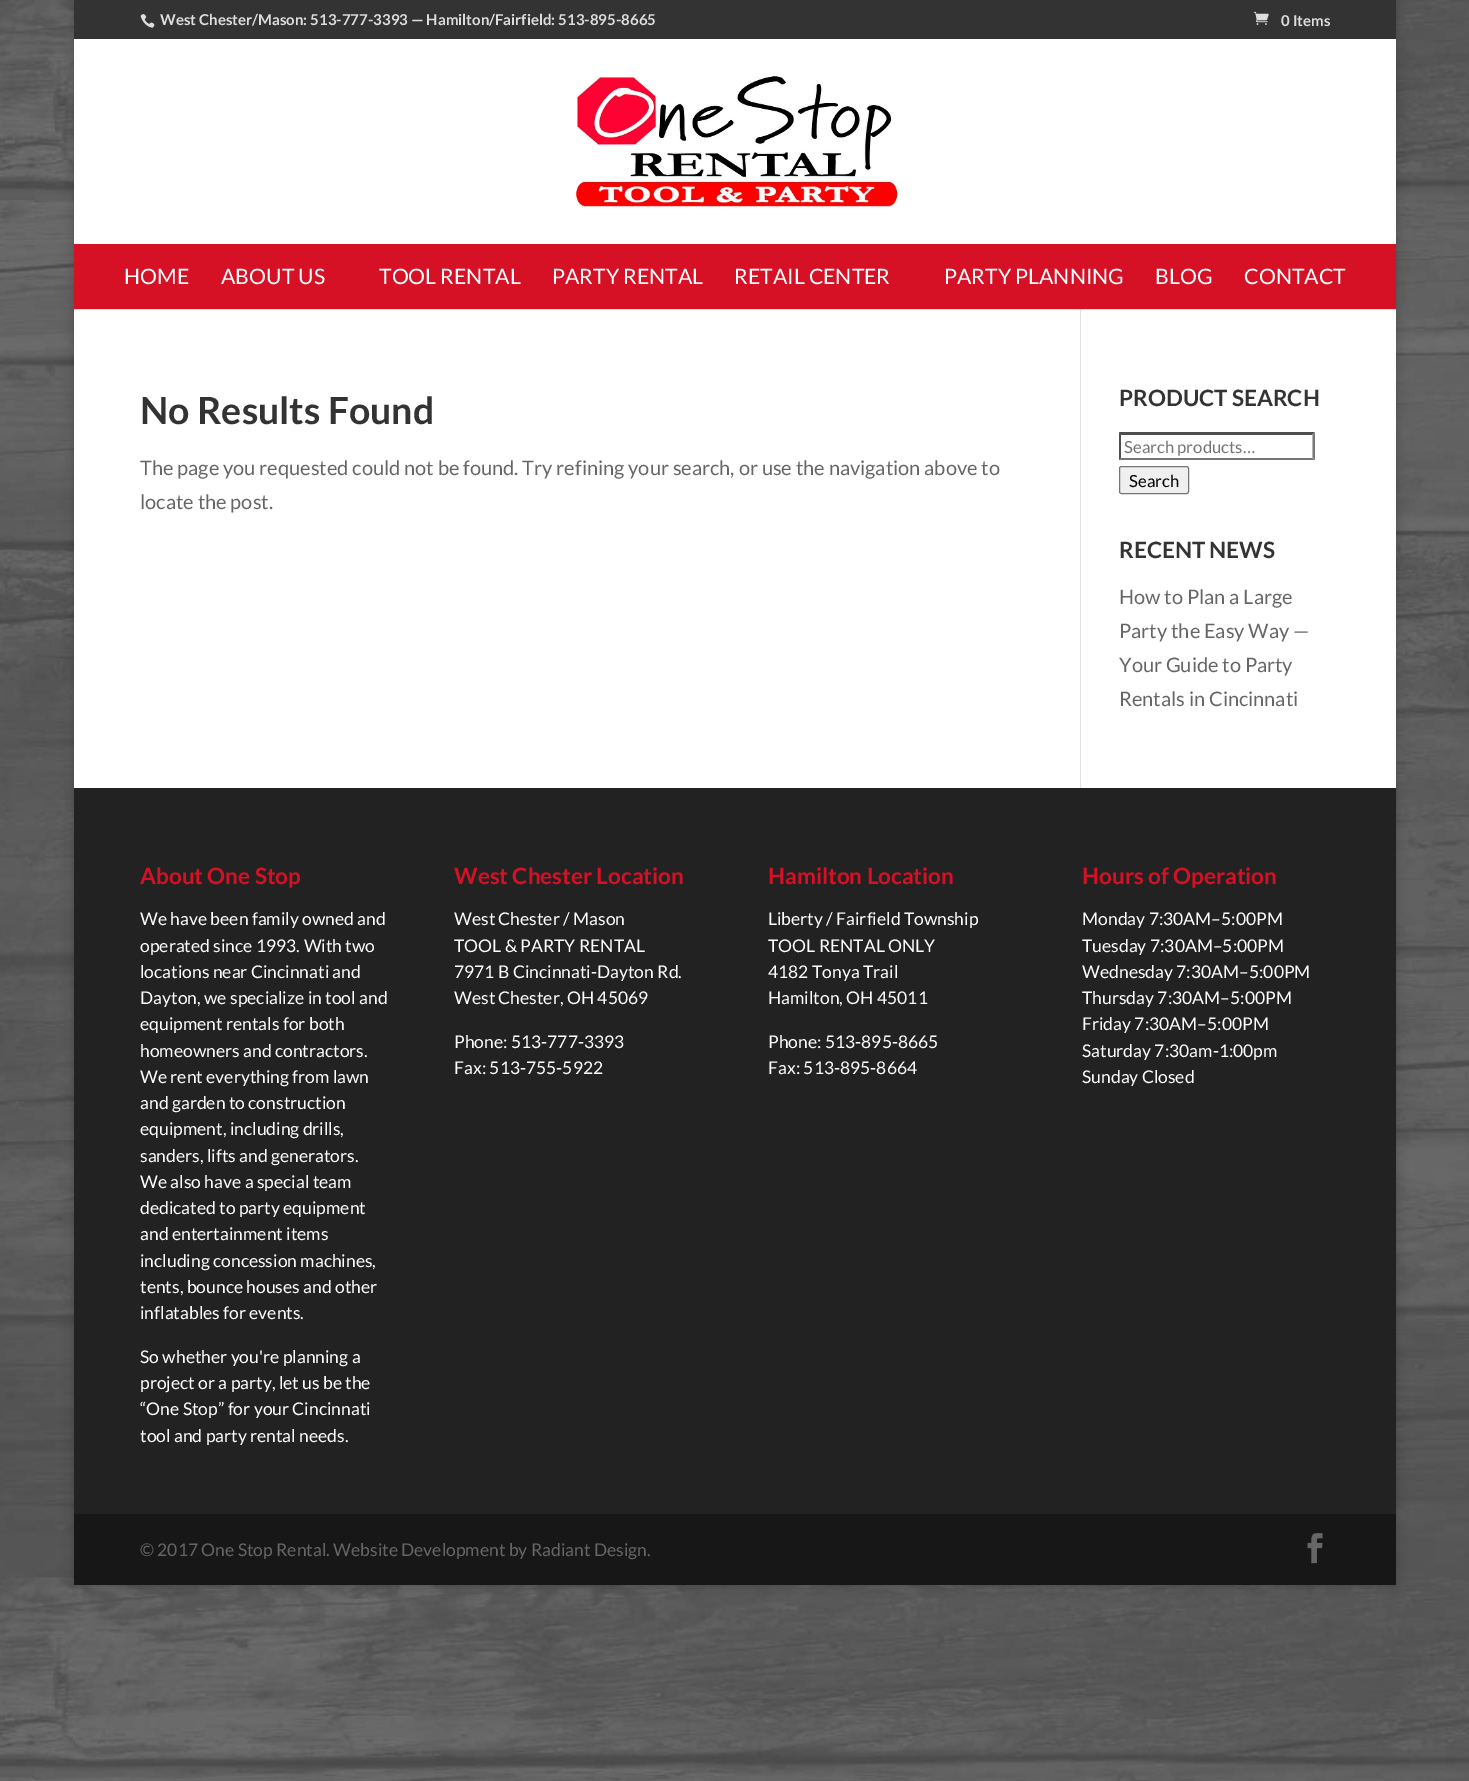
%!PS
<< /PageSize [1469 1781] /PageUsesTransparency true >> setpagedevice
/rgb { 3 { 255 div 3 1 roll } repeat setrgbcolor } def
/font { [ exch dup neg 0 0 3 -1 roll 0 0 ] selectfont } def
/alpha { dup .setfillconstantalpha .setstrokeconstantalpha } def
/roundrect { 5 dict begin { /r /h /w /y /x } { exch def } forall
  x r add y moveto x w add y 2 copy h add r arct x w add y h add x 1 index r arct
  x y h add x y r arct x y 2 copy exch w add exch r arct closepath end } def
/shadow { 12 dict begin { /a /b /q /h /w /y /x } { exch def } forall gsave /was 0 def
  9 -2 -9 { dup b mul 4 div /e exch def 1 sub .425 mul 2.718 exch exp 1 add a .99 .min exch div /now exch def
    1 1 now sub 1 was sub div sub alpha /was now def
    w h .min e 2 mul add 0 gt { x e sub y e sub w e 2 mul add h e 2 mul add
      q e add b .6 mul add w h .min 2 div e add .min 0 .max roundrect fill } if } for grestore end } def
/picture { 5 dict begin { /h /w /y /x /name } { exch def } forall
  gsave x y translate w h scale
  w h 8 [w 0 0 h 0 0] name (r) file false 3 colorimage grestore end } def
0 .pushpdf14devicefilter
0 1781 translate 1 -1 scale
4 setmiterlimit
255 255 255 rgb
0 0 1469 1781 rectfill
(img/1.rgb) 0 0 1469 1781 picture
0 0 0 rgb
74 0 1322 1585 0 6 0.2 shadow
51 51 51 rgb
74 0 1322 39 rectfill
(img/2.rgb) 140 14 15 14 picture
(img/3.rgb) 1253 11 16 14 picture
[
  [74 309 1322 479 255 255 255]
  [1080 309 1 479 226 226 226]
] { aload pop rgb rectfill } forall
0.1 alpha
[
  [74 309 1322 1 0 0 0]
] { aload pop rgb rectfill } forall
1 alpha
[
  [74 39 1322 205 255 255 255]
] { aload pop rgb rectfill } forall
(img/4.rgb) 576 76 322 131 picture
214 16 37 rgb
74 244 1322 65 rectfill
79 79 79 rgb
1119 432 moveto 1315 432 lineto 1312 435 lineto 1121 435 lineto closepath fill
118 118 118 rgb
1315 432.5 moveto 1315 460 lineto 1312.5 457.5 lineto 1312.5 435 lineto closepath fill
1315 460 moveto 1119 460 lineto 1121 458 lineto 1312 458 lineto closepath fill
79 79 79 rgb
1119 460 moveto 1119 432.5 lineto 1121 435 lineto 1121 457.5 lineto closepath fill
239 239 239 rgb
1119.5 466.5 69 27 2 roundrect gsave fill grestore
118 118 118 rgb
stroke
34 34 34 rgb
74 788 1322 726 rectfill
23 23 23 rgb
74 1514 1322 71 rectfill
(img/5.rgb) 1307 1533 16 31 picture
/Lato-Bold 15 font
221 221 221 rgb
160 25 moveto (West Chester/Mason: 513-777-3393 — Hamilton/Fairfield: 513-895-8665) show
1281 26 moveto (0 Items) show
/Lato-Regular 21.25 font
255 255 255 rgb
[
  [(HOME) 124 284]
  [(ABOUT US) 221 284]
  [(TOOL RENTAL) 379 284]
  [(PARTY RENTAL) 552 284]
  [(RETAIL CENTER) 734 284]
  [(PARTY PLANNING) 944 284]
  [(BLOG) 1155 284]
  [(CONTACT) 1244 284]
] { aload pop moveto show } forall
/Lato-Bold 37.5 font
51 51 51 rgb
140 424 moveto (No Results Found) show
/Lato-Regular 20 font
102 102 102 rgb
140 475 moveto (The page you requested could not be found. Try refining your search, or use the navigation above to) show
140 509 moveto (locate the post.) show
/Lato-Bold 22.5 font
51 51 51 rgb
1119 406 moveto (PRODUCT SEARCH) show
/Lato-Regular 16.75 font
117 117 117 rgb
1124 453 moveto (Search products…) show
0 0 0 rgb
1129 487 moveto (Search) show
/Lato-Bold 22.5 font
51 51 51 rgb
1119 558 moveto (RECENT NEWS) show
/Lato-Regular 20 font
102 102 102 rgb
[
  [(How to Plan a Large) 1119 604]
  [(Party the Easy Way —) 1119 638]
  [(Your Guide to Party) 1119 672]
  [(Rentals in Cincinnati) 1119 706]
] { aload pop moveto show } forall
/Lato-Bold 22.5 font
214 16 37 rgb
140 884 moveto (About One Stop) show
/Lato-Regular 17.5 font
255 255 255 rgb
[
  [(We have been family owned and) 140 925]
  [(operated since 1993. With two) 140 952]
  [(locations near Cincinnati and) 140 978]
  [(Dayton, we specialize in tool and) 140 1004]
  [(equipment rentals for both) 140 1030]
  [(homeowners and contractors.) 140 1057]
  [(We rent everything from lawn) 140 1083]
  [(and garden to construction) 140 1109]
  [(equipment, including drills,) 140 1135]
  [(sanders, lifts and generators.) 140 1162]
  [(We also have a special team) 140 1188]
  [(dedicated to party equipment) 140 1214]
  [(and entertainment items) 140 1240]
  [(including concession machines,) 140 1267]
  [(tents, bounce houses and other) 140 1293]
  [(inflatables for events.) 140 1319]
  [(So whether you're planning a) 140 1363]
  [(project or a party, let us be the) 140 1389]
  [(“One Stop” for your Cincinnati) 140 1415]
  [(tool and party rental needs.) 140 1442]
] { aload pop moveto show } forall
/Lato-Bold 22.5 font
214 16 37 rgb
454 884 moveto (West Chester Location) show
/Lato-Regular 17.5 font
255 255 255 rgb
[
  [(West Chester / Mason) 454 925]
  [(TOOL & PARTY RENTAL) 454 952]
  [(7971 B Cincinnati-Dayton Rd.) 454 978]
  [(West Chester, OH 45069) 454 1004]
  [(Phone: 513-777-3393) 454 1048]
  [(Fax: 513-755-5922) 454 1074]
] { aload pop moveto show } forall
/Lato-Bold 22.5 font
214 16 37 rgb
768 884 moveto (Hamilton Location) show
/Lato-Regular 17.5 font
255 255 255 rgb
[
  [(Liberty / Fairfield Township) 768 925]
  [(TOOL RENTAL ONLY) 768 952]
  [(4182 Tonya Trail) 768 978]
  [(Hamilton, OH 45011) 768 1004]
  [(Phone: 513-895-8665) 768 1048]
  [(Fax: 513-895-8664) 768 1074]
] { aload pop moveto show } forall
/Lato-Bold 22.5 font
214 16 37 rgb
1082 884 moveto (Hours of Operation) show
/Lato-Regular 17.5 font
255 255 255 rgb
[
  [(Monday 7:30AM–5:00PM) 1082 925]
  [(Tuesday 7:30AM–5:00PM) 1082 952]
  [(Wednesday 7:30AM–5:00PM) 1082 978]
  [(Thursday 7:30AM–5:00PM) 1082 1004]
  [(Friday 7:30AM–5:00PM) 1082 1030]
  [(Saturday 7:30am-1:00pm) 1082 1057]
  [(Sunday Closed) 1082 1083]
] { aload pop moveto show } forall
102 102 102 rgb
140 1556 moveto (© 2017 One Stop Rental. Website Development by Radiant Design.) show
.poppdf14devicefilter showpage
